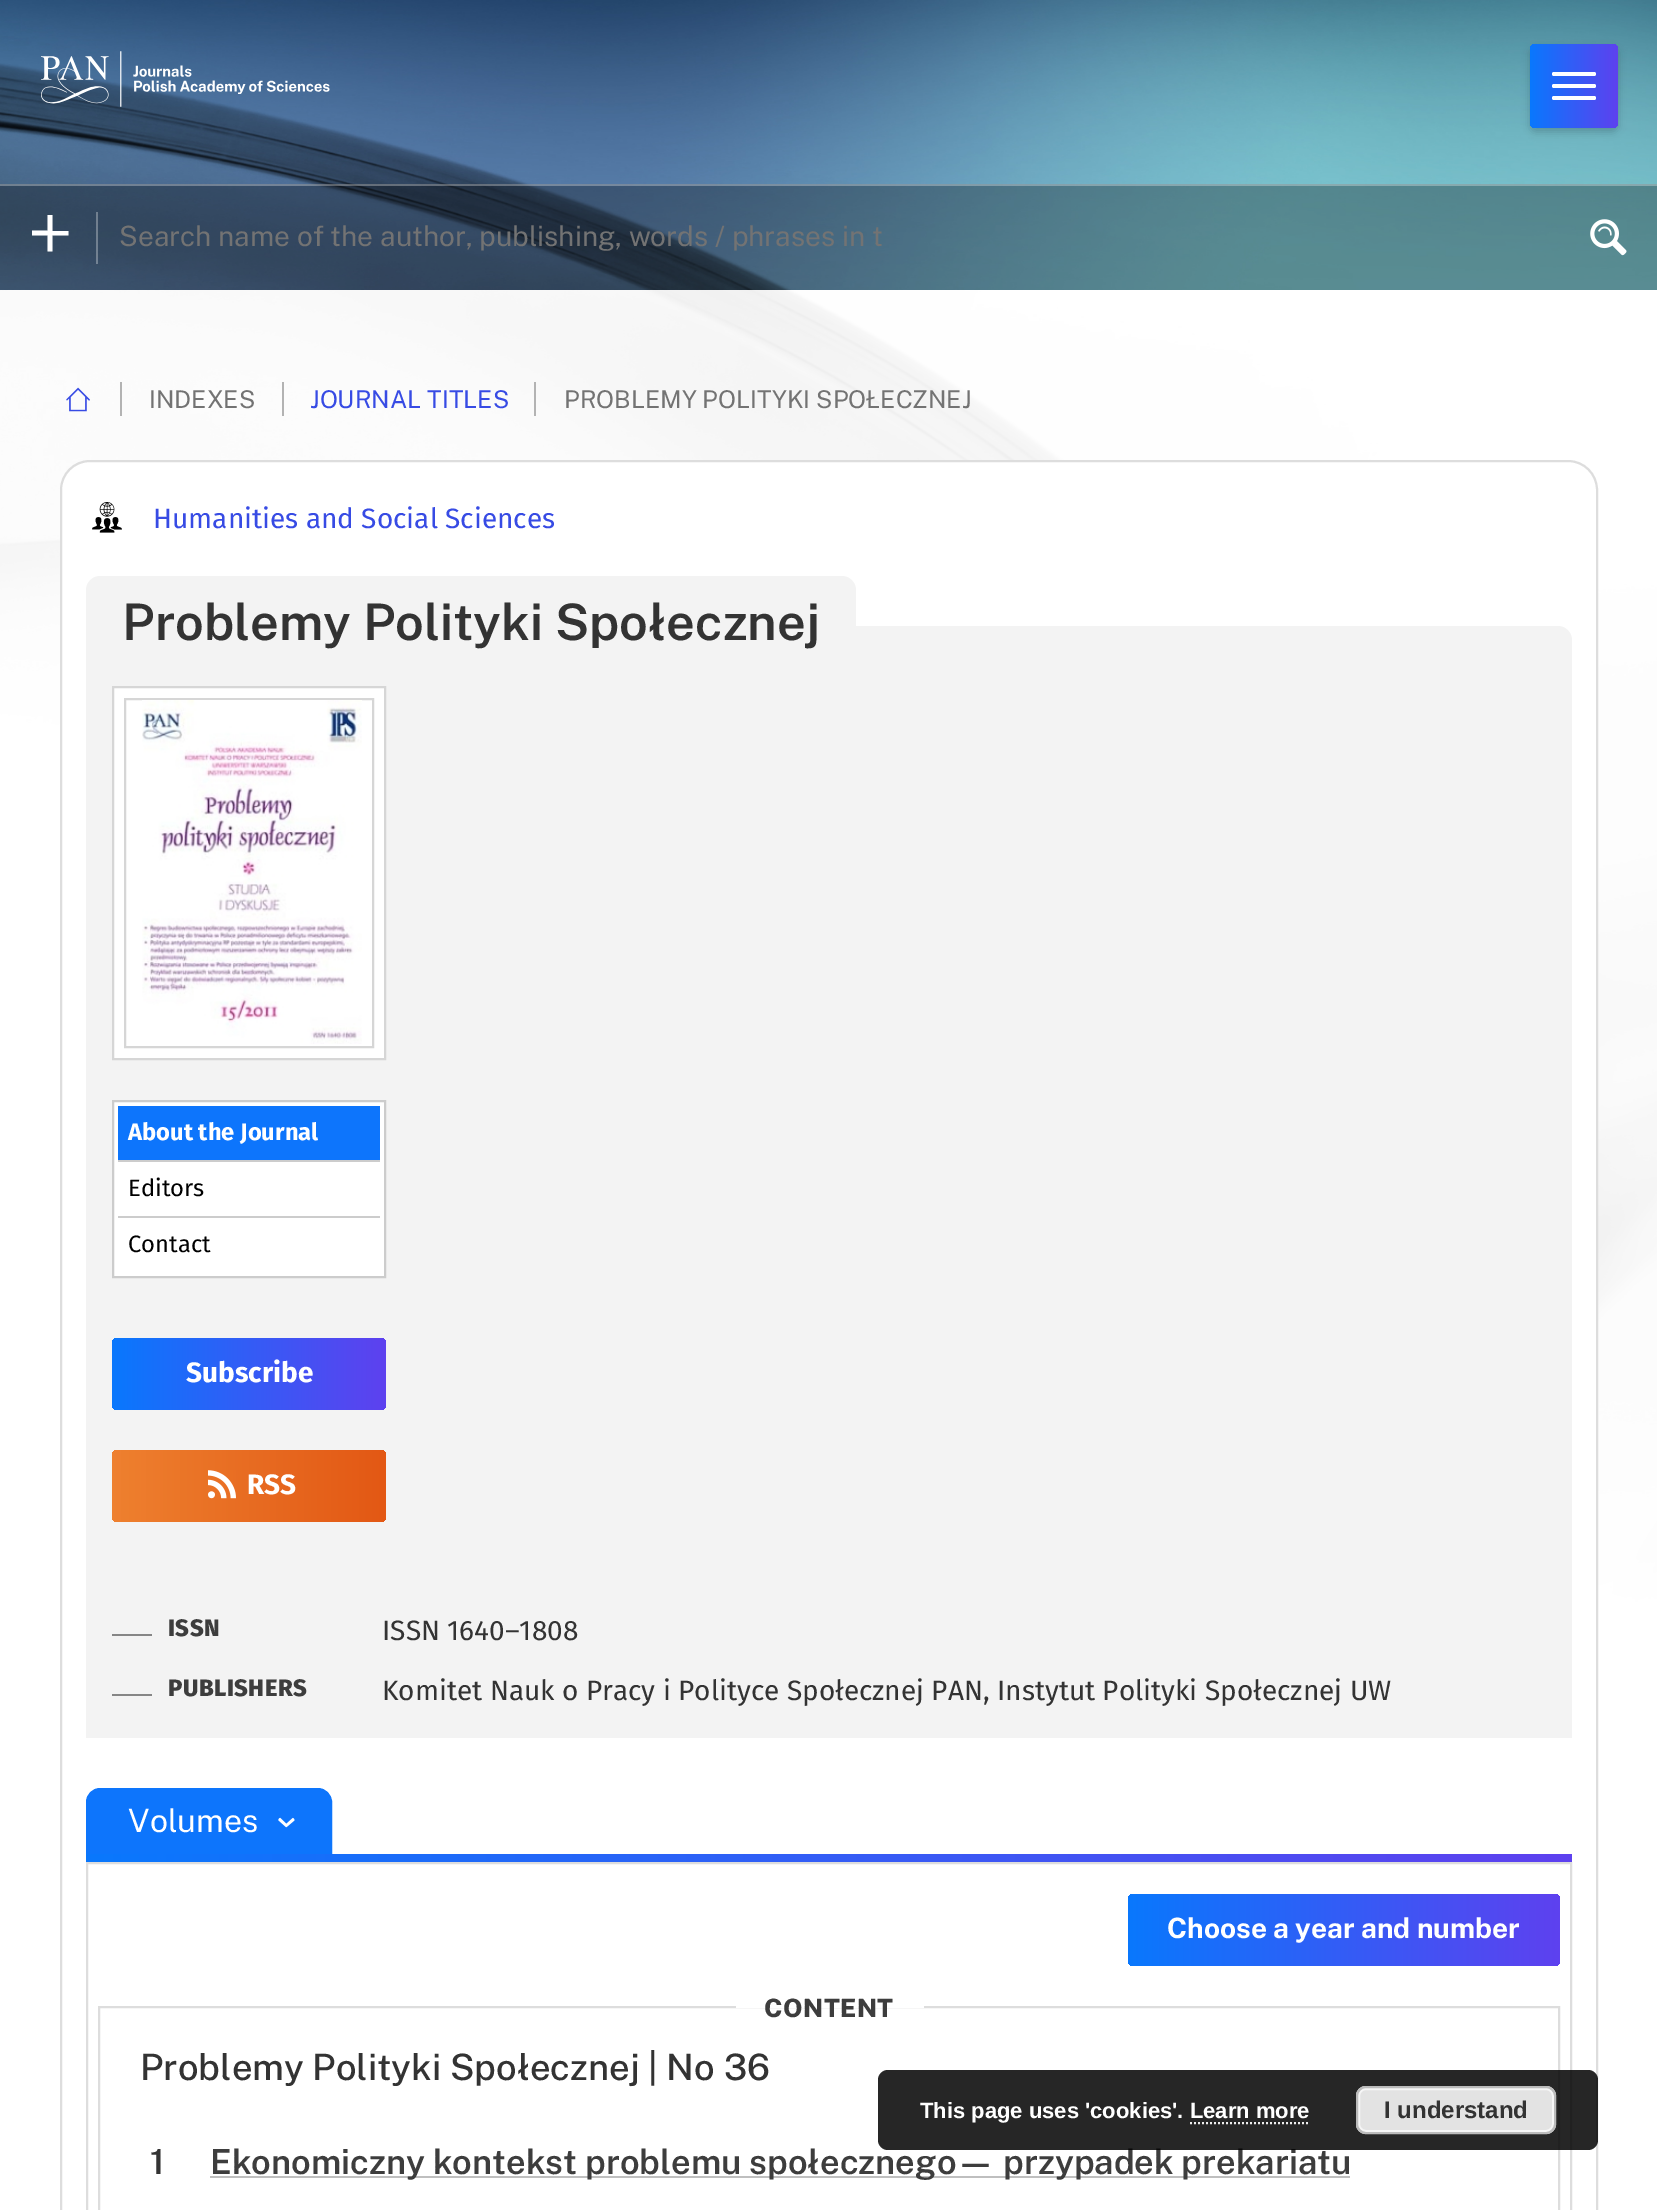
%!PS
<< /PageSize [1657 2210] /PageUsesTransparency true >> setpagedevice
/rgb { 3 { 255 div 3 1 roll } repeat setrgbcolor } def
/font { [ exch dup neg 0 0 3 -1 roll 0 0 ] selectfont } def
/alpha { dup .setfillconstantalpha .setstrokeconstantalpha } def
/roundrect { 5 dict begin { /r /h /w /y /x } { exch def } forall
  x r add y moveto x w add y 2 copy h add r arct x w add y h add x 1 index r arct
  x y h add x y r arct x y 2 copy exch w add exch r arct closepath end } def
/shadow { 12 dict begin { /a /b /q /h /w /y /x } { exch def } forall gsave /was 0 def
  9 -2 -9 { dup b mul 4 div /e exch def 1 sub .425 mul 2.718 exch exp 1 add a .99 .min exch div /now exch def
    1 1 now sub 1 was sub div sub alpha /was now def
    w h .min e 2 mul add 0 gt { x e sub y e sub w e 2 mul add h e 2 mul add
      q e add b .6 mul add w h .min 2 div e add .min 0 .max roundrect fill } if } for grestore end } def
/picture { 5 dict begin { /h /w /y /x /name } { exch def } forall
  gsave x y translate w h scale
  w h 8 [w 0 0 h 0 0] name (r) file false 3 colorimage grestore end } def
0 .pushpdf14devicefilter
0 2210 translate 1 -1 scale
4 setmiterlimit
255 255 255 rgb
0 0 1657 2210 rectfill
(img/1.rgb) 0 290 1657 1320 picture
(img/2.rgb) 0 0 1657 290 picture
(img/3.rgb) 41 51 289 56 picture
0 0 0 rgb
1530 48 88 84 6 4 0.18 shadow
gsave 1530 44 88 84 6 roundrect clip newpath
<< /ShadingType 2 /ColorSpace /DeviceRGB /Coords [1530 86 1618 86] /Extend [true true] /Function << /FunctionType 2 /Domain [0 1] /C0 [0.035 0.471 0.992] /C1 [0.369 0.255 0.937] /N 1 >> >> shfill grestore
255 255 255 rgb
1552 72 44 4 2 roundrect fill
1552 84 44 4 2 roundrect fill
1552 96 44 4 2 roundrect fill
0.3 alpha
0 0 0 rgb
0 184 1657 106 rectfill
255 255 255 rgb
0 184 1657 2 rectfill
1 alpha
68.5 235.5 moveto 52.5 235.5 lineto 52.5 251.5 lineto 47.5 251.5 lineto 47.5 235.5 lineto 32 235.5 lineto 32 230.5 lineto 47.5 230.5 lineto 47.5 215 lineto 52.5 215 lineto 52.5 231 lineto 68.5 231 lineto closepath fill
0.3 alpha
96 212 2 52 rectfill
1 alpha
(img/4.rgb) 1590 219 37 37 picture
0.9 alpha
0 290 1657 1320 rectfill
1 alpha
179 179 179 rgb
120 382 2 34 rectfill
(img/5.rgb) 66 387 24 25 picture
282 382 2 34 rectfill
534 382 2 34 rectfill
255 255 255 rgb
90 461 moveto 1568 461 lineto 1584 461 1597 474 1597 490 curveto 1597 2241 lineto 61 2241 lineto 61 490 lineto 61 474 74 461 90 461 curveto closepath gsave fill grestore
221 221 221 rgb
2 setlinewidth
stroke
(img/6.rgb) 92 502 30 31 picture
243 243 243 rgb
86 626 moveto 1558 626 lineto 1565.5 626 1572 632.5 1572 640 curveto 1572 1738 lineto 86 1738 lineto closepath fill
100 576 moveto 842 576 lineto 849.5 576 856 582.5 856 590 curveto 856 666 lineto 86 666 lineto 86 590 lineto 86 582.5 92.5 576 100 576 curveto closepath fill
255 255 255 rgb
113 687 moveto 385 687 lineto 385 1059 lineto 113 1059 lineto closepath gsave fill grestore
214 214 214 rgb
stroke
125 699 248 348 rectstroke
(img/7.rgb) 142 700 220 344 picture
255 255 255 rgb
113 1101 moveto 385 1101 lineto 385 1277 lineto 113 1277 lineto closepath gsave fill grestore
204 204 204 rgb
stroke
[
  [118 1160 262 2 204 204 204]
  [118 1106 262 54 13 117 252]
  [118 1216 262 2 204 204 204]
] { aload pop rgb rectfill } forall
gsave 112 1338 274 72 6 roundrect clip newpath
<< /ShadingType 2 /ColorSpace /DeviceRGB /Coords [112 1374 386 1374] /Extend [true true] /Function << /FunctionType 2 /Domain [0 1] /C0 [0.035 0.471 0.992] /C1 [0.369 0.255 0.937] /N 1 >> >> shfill grestore
gsave 112 1450 274 72 6 roundrect clip newpath
<< /ShadingType 2 /ColorSpace /DeviceRGB /Coords [112 1486 386 1486] /Extend [true true] /Function << /FunctionType 3 /Domain [0 1] /Functions [<< /FunctionType 2 /Domain [0 1] /C0 [0.933 0.502 0.184] /C1 [0.933 0.502 0.184] /N 1 >> << /FunctionType 2 /Domain [0 1] /C0 [0.933 0.502 0.184] /C1 [0.89 0.345 0.078] /N 1 >>] /Bounds [0.01] /Encode [0 1 0 1] >> >> shfill grestore
(img/8.rgb) 208 1470 28 29 picture
134 134 134 rgb
112 1634 40 2 rectfill
112 1694 40 2 rectfill
13 117 252 rgb
100 1789 moveto 318 1789 lineto 325 1789 331 1795 331 1802 curveto 331 1853 lineto 87 1853 lineto 87 1802 lineto 87 1795 93 1789 100 1789 curveto closepath gsave fill grestore
stroke
(img/9.rgb) 278 1817 17 11 picture
gsave 86 1854 moveto 1572 1854 lineto 1572 1862 lineto 86 1862 lineto closepath clip newpath
<< /ShadingType 2 /ColorSpace /DeviceRGB /Coords [86 1858 1572 1858] /Extend [true true] /Function << /FunctionType 2 /Domain [0 1] /C0 [0.035 0.471 0.992] /C1 [0.369 0.255 0.937] /N 1 >> >> shfill grestore
221 221 221 rgb
87 1863 1484 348 rectstroke
gsave 1128 1894 432 72 6 roundrect clip newpath
<< /ShadingType 2 /ColorSpace /DeviceRGB /Coords [1128 1930 1560 1930] /Extend [true true] /Function << /FunctionType 2 /Domain [0 1] /C0 [0.035 0.471 0.992] /C1 [0.369 0.255 0.937] /N 1 >> >> shfill grestore
99 2007 1460 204 rectstroke
255 255 255 rgb
736 2006 188 2 rectfill
191 191 191 rgb
210 2176 1140 2 rectfill
/PublicSans-Regular 28 font
115 115 115 rgb
119 246 moveto (Search name of the author, publishing, words / phrases in t) show
/PublicSans-Regular 24.5 font
149 408 moveto (INDEXES) show
55 75 228 rgb
310 408 moveto (JOURNAL TITLES) show
115 115 115 rgb
564 408 moveto (PROBLEMY POLITYKI SPOŁECZNEJ) show
/FiraSans-Regular 28 font
55 75 228 rgb
153 528 moveto (Humanities and Social Sciences) show
/PublicSans-SemiBold 50.4 font
51 51 51 rgb
122 640 moveto (Problemy Polityki Społecznej) show
/FiraSans-Bold 23.75 font
255 255 255 rgb
128 1140 moveto (About the Journal) show
/FiraSans-Regular 23.75 font
0 0 0 rgb
128 1196 moveto (Editors) show
128 1252 moveto (Contact) show
/FiraSans-Bold 28 font
255 255 255 rgb
186 1382 moveto (Subscribe) show
247 1494 moveto (RSS) show
/FiraSans-ExtraBold 23.75 font
61 61 61 rgb
168 1636 moveto 0.5 0 (ISSN) ashow
/FiraSans-Regular 28 font
51 51 51 rgb
382 1640 moveto (ISSN 1640–1808) show
/FiraSans-ExtraBold 23.75 font
61 61 61 rgb
168 1696 moveto 0.5 0 (PUBLISHERS) ashow
/FiraSans-Regular 28 font
51 51 51 rgb
382 1700 moveto (Komitet Nauk o Pracy i Polityce Społecznej PAN, Instytut Polityki Społecznej UW) show
/PublicSans-Regular 32 font
255 255 255 rgb
128 1832 moveto (Volumes) show
/PublicSans-Bold 28 font
1167 1938 moveto (Choose a year and number) show
/PublicSans-ExtraBold 25.25 font
61 61 61 rgb
764 2017 moveto 0.5 0 (CONTENT) ashow
/PublicSans-Medium 36.4 font
51 51 51 rgb
140 2080 moveto (Problemy Polityki Społecznej | No 36) show
/PublicSans-SemiBold 34.45 font
150 2174 moveto (1) show
61 61 61 rgb
210 2174 moveto -0.25 0 32 (Ekonomiczny kontekst problemu społecznego— przypadek prekariatu) widthshow
0.85 alpha
0 0 0 rgb
878 2070 720 80 10 roundrect fill
/LiberationSans-Bold 22 font
1 alpha
255 255 255 rgb
920 2118 moveto (This page uses 'cookies'. Learn more) show
227 227 227 rgb
1356 2086 200 48 10 roundrect fill
246 246 246 rgb
1359 2089 194 42 7 roundrect stroke
187 187 187 rgb
1357 2087 198 46 9 roundrect stroke
/LiberationSans-Bold 24 font
51 51 51 rgb
1384 2118 moveto (I understand) show
238 238 238 rgb
[2 2] 0 setdash
1190 2123 moveto 1310 2123 lineto stroke
.poppdf14devicefilter showpage
